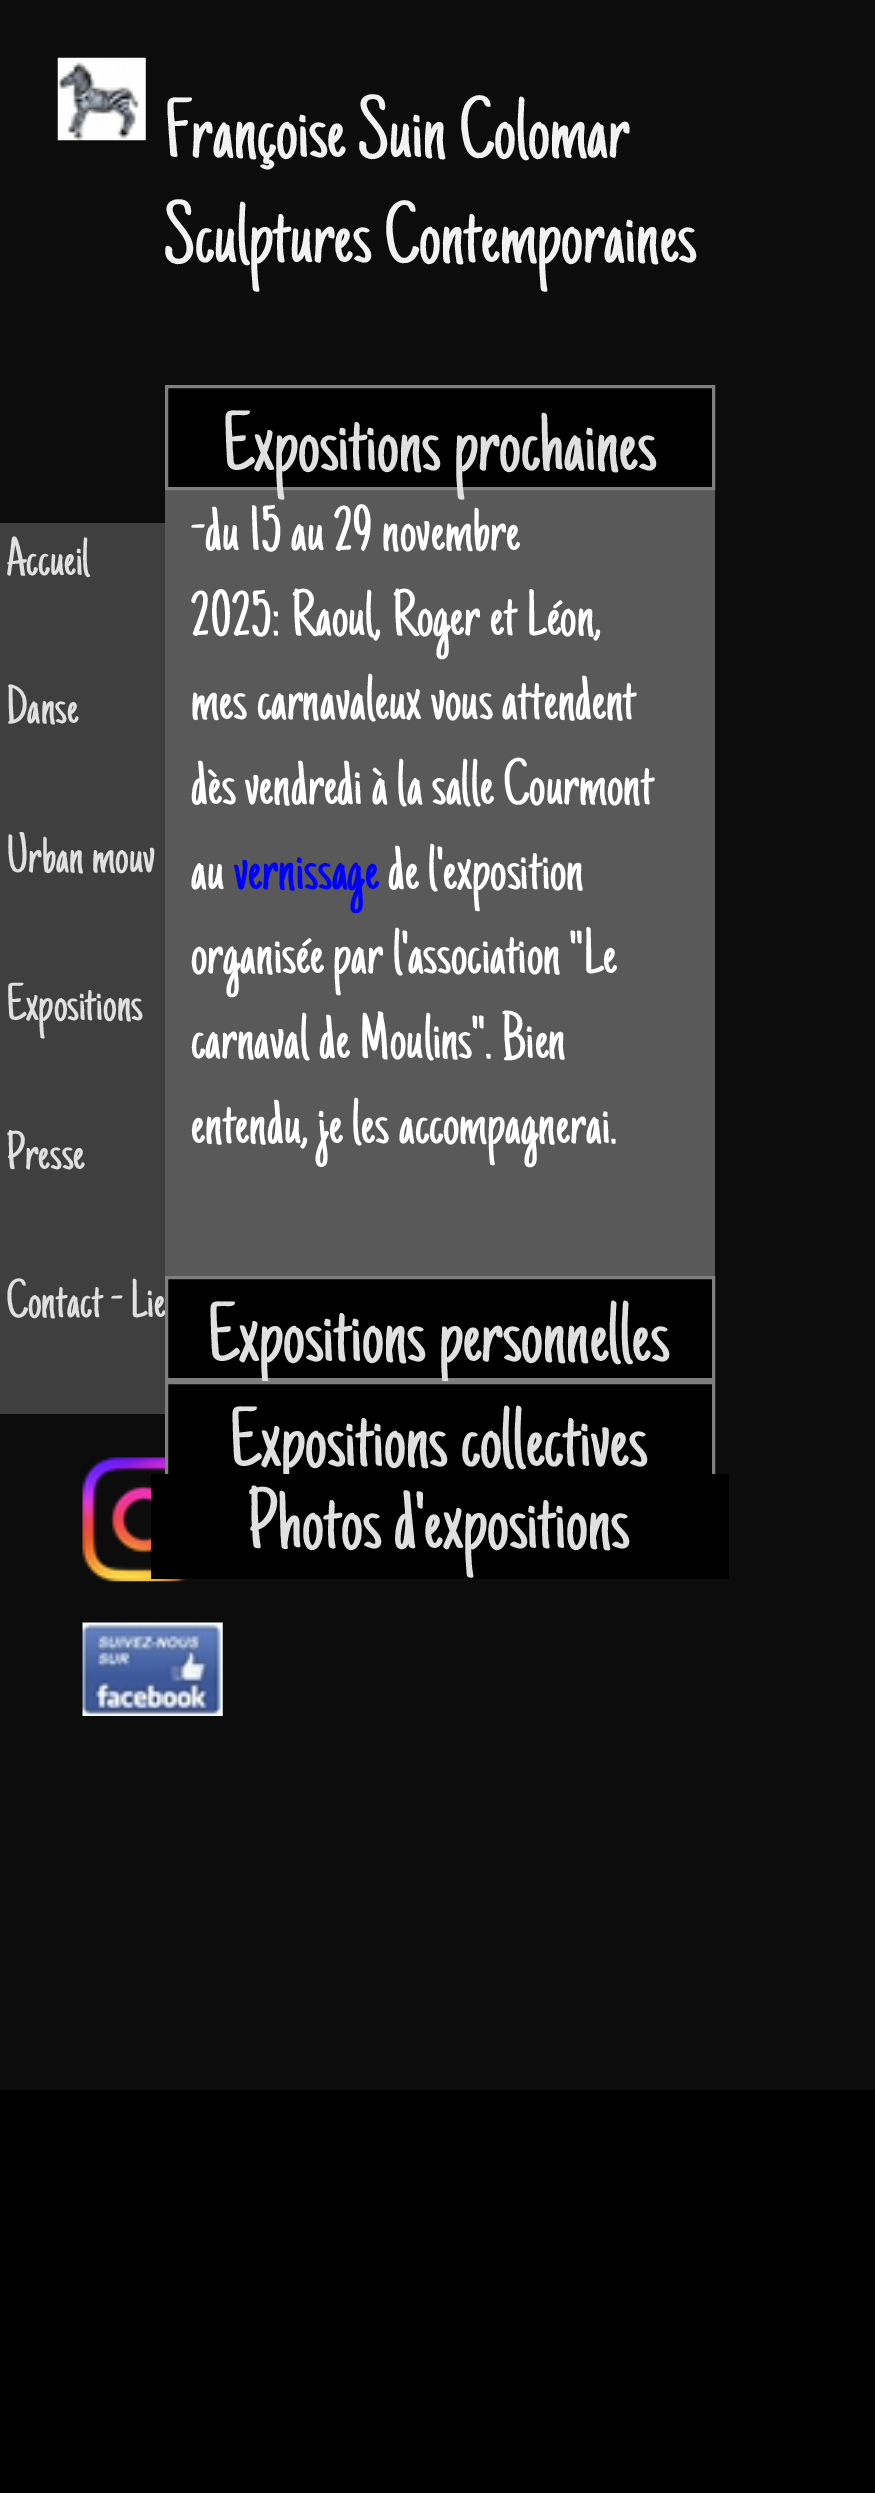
%!PS
<< /PageSize [875 2493] >> setpagedevice
/rgb { 3 { 255 div 3 1 roll } repeat setrgbcolor } def
/font { [ exch dup neg 0 0 3 -1 roll 0 0 ] selectfont } def
/picture { 5 dict begin { /h /w /y /x /name } { exch def } forall
  gsave x y translate w h scale
  w h 8 [w 0 0 h 0 0] name (r) file false 3 colorimage grestore end } def
0 2493 translate 1 -1 scale
4 setmiterlimit
0 0 0 rgb
0 0 875 2493 rectfill
12 12 12 rgb
0 0 875 2090 rectfill
(img/1.rgb) 57 57 89 84 picture
63 63 63 rgb
0 523 165 891 rectfill
89 89 89 rgb
165 490 550 786 rectfill
0 0 0 rgb
166.5 386.5 moveto 713.5 386.5 lineto 713.5 488.5 lineto 166.5 488.5 lineto closepath gsave fill grestore
127 127 127 rgb
3 setlinewidth
stroke
(img/2.rgb) 82 1457 108 125 picture
(img/3.rgb) 82 1622 141 94 picture
/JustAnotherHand-Regular 88 font
242 242 242 rgb
164 157 moveto (Françoise Suin Colomar) show
164 262 moveto (Sculptures Contemporaines) show
/JustAnotherHand-Regular 55 font
224 224 224 rgb
[
  [(Accueil) 6 575]
  [(Danse) 6 723]
  [(Urban mouv) 6 872]
  [(Expositions) 6 1020]
  [(Presse) 6 1169]
  [(Contact - Lie) 6 1317]
] { aload pop moveto show } forall
/JustAnotherHand-Regular 88 font
222 470 moveto (Expositions prochaines) show
/JustAnotherHand-Regular 66 font
255 255 255 rgb
[
  [(-du 15 au 29 novembre) 191 550]
  [(2025: Raoul, Roger et Léon,) 191 635]
  [(mes carnavaleux vous attendent) 191 719]
  [(dès vendredi à la salle Courmont) 191 804]
  [(au) 191 889]
] { aload pop moveto show } forall
0 0 255 rgb
234 889 moveto (vernissage) show
255 255 255 rgb
[
  [(de l'exposition) 388 889]
  [(organisée par l'association "Le) 191 973]
  [(carnaval de Moulins". Bien) 191 1058]
  [(entendu, je les accompagnerai.) 191 1143]
] { aload pop moveto show } forall
0 0 0 rgb
166.5 1277.5 moveto 713.5 1277.5 lineto 713.5 1379.5 lineto 166.5 1379.5 lineto closepath gsave fill grestore
127 127 127 rgb
stroke
/JustAnotherHand-Regular 88 font
224 224 224 rgb
207 1361 moveto (Expositions personnelles) show
0 0 0 rgb
168 1384 544 90 rectfill
127 127 127 rgb
166.5 1382.5 547 101 rectstroke
224 224 224 rgb
229 1466 moveto (Expositions collectives) show
0 0 0 rgb
151 1474 578 105 rectfill
224 224 224 rgb
247 1548 moveto (Photos d'expositions) show
showpage
